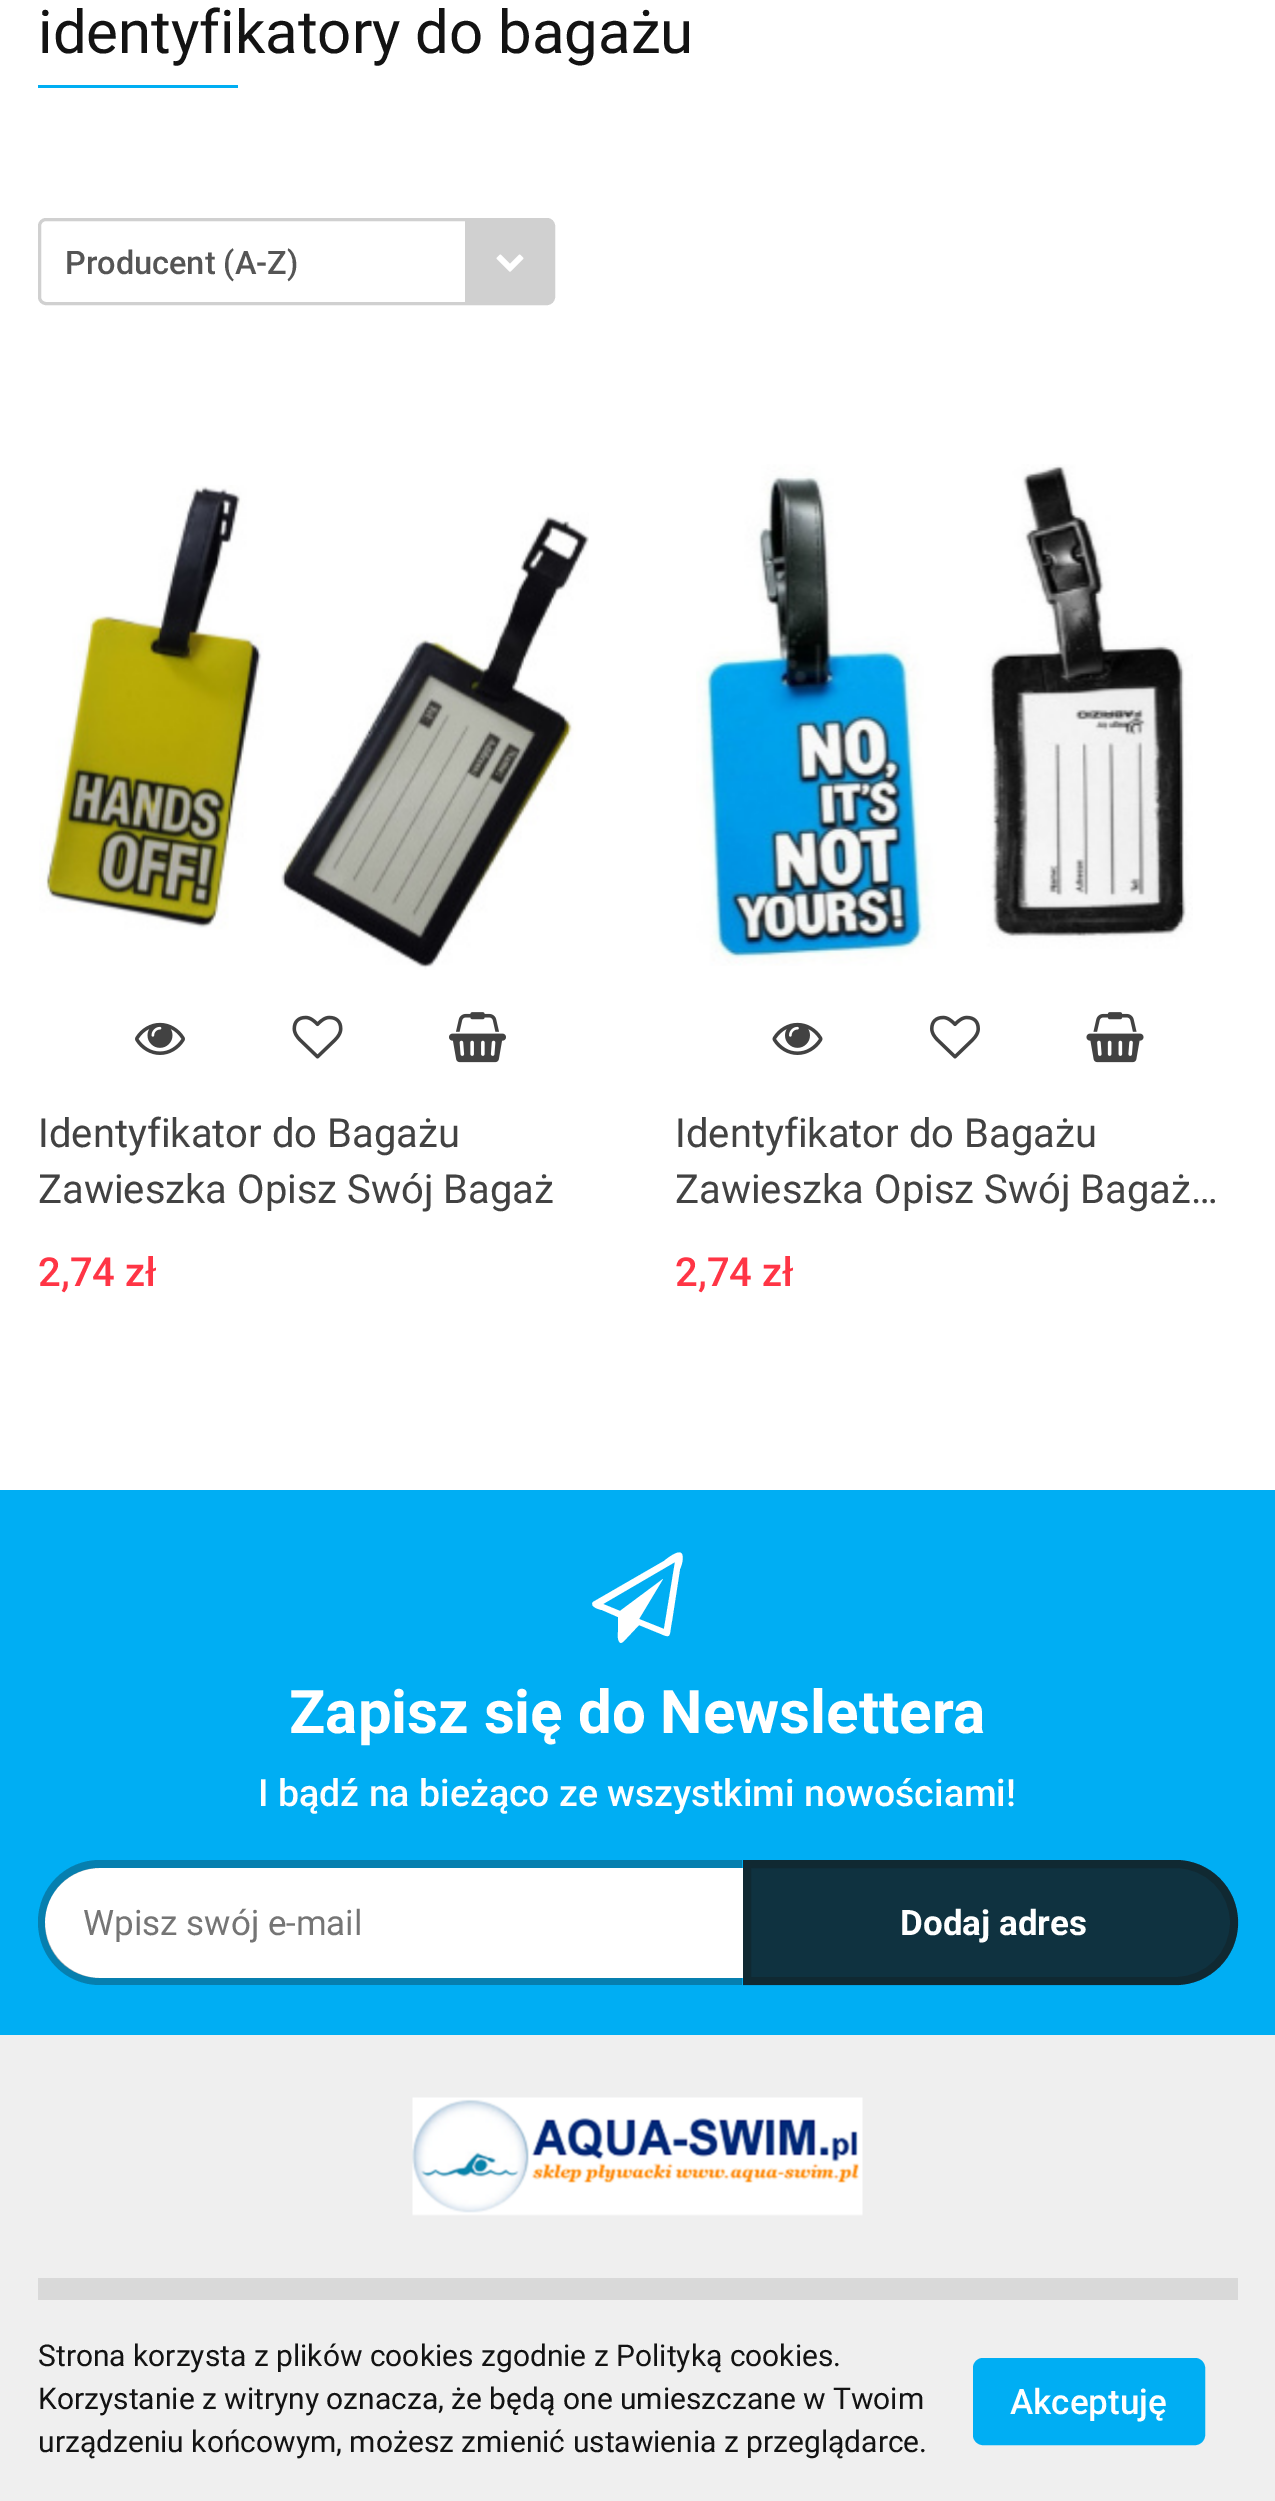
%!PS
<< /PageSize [1275 2501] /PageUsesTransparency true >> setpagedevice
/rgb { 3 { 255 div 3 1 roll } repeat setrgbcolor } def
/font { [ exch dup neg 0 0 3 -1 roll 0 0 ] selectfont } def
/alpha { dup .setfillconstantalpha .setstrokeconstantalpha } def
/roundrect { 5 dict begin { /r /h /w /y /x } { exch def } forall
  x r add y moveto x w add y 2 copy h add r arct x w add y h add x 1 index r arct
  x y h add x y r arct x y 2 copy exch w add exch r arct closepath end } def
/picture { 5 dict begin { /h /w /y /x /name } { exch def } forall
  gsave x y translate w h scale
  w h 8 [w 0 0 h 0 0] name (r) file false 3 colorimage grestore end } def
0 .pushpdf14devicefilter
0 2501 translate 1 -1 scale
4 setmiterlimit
255 255 255 rgb
0 0 1275 2501 rectfill
0 174 243 rgb
38 85 200 3 rectfill
208 208 208 rgb
3 setlinewidth
39.5 219.5 514 84 6.5 roundrect stroke
465 220 moveto 548 220 lineto 551 220 553 222 553 225 curveto 553 298 lineto 553 301 551 303 548 303 curveto 465 303 lineto closepath fill
(img/1.rgb) 496 254 28 18 picture
(img/2.rgb) 39 485 550 485 picture
(img/3.rgb) 135 1022 50 33 picture
(img/4.rgb) 292 1015 51 44 picture
(img/5.rgb) 449 1012 57 51 picture
(img/6.rgb) 696 464 497 502 picture
(img/7.rgb) 772 1022 51 33 picture
(img/8.rgb) 930 1015 50 44 picture
(img/9.rgb) 1086 1012 58 51 picture
0 174 243 rgb
0 1490 1275 545 rectfill
255 255 255 rgb
681 1553 moveto 685 1556 681 1567 680 1569 curveto 672 1621 lineto 669 1635 672 1639 661 1634 curveto 639 1625 lineto 623 1642 lineto 621 1643 lineto 617 1642 618 1634 618 1632 curveto 618 1617 lineto 602 1610 lineto 601 1610 589 1607 593 1602 curveto 664 1561 lineto 664 1561 677 1550 681 1553 curveto closepath 664 1629 moveto 675 1562 lineto 603 1604 lineto 620 1611 lineto 663 1579 lineto 639 1619 lineto closepath fill
100 1868 moveto 743 1868 lineto 743 1978 lineto 100 1978 lineto 69.5 1978 45 1953.5 45 1923 curveto 45 1892.5 69.5 1868 100 1868 curveto closepath fill
0.3 alpha
19 19 19 rgb
100 1860 moveto 742 1860 lineto 742 1985 lineto 100 1985 lineto 65 1985 38 1957 38 1922 curveto 38 1888 65 1860 100 1860 curveto closepath 100 1868 moveto 742 1868 lineto 742 1978 lineto 100 1978 lineto 70 1978 45 1953 45 1922 curveto 45 1892 70 1868 100 1868 curveto closepath eofill
1 alpha
15 50 64 rgb
743 1860 moveto 1175.5 1860 lineto 1210 1860 1238 1888 1238 1922.5 curveto 1238 1957 1210 1985 1175.5 1985 curveto 743 1985 lineto closepath fill
0.3 alpha
19 19 19 rgb
8 setlinewidth
747 1864 moveto 1175.5 1864 lineto 1208 1864 1234 1890 1234 1922.5 curveto 1234 1955 1208 1981 1175.5 1981 curveto 747 1981 lineto closepath stroke
1 alpha
239 239 239 rgb
0 2035 1275 466 rectfill
(img/10.rgb) 412 2097 451 119 picture
217 217 217 rgb
38 2278 1200 22 rectfill
0 174 243 rgb
977 2362 224 79 6 roundrect gsave fill grestore
stroke
/Roboto-Regular 60 font
19 19 19 rgb
38 53 moveto (identyfikatory do bagażu) show
/Roboto-Medium 32.5 font
85 85 85 rgb
65 274 moveto (Producent \(A-Z\)) show
/Roboto-Regular 40 font
66 66 66 rgb
38 1147 moveto (Identyfikator do Bagażu) show
38 1203 moveto (Zawieszka Opisz Swój Bagaż) show
/Roboto-Medium 40 font
255 53 69 rgb
38 1286 moveto (2,74 zł) show
/Roboto-Regular 40 font
66 66 66 rgb
675 1147 moveto (Identyfikator do Bagażu) show
675 1203 moveto (Zawieszka Opisz Swój Bagaż…) show
/Roboto-Medium 40 font
255 53 69 rgb
675 1286 moveto (2,74 zł) show
/Roboto-Bold 60 font
255 255 255 rgb
289 1733 moveto (Zapisz się do Newslettera) show
/Roboto-Medium 37.5 font
258 1806 moveto (I bądź na bieżąco ze wszystkimi nowościami!) show
/Roboto-Regular 35 font
117 117 117 rgb
83 1935 moveto (Wpisz swój e-mail) show
/Roboto-Bold 35 font
255 255 255 rgb
900 1935 moveto (Dodaj adres) show
/Roboto-Regular 30 font
19 19 19 rgb
[
  [(Strona korzysta z plików cookies zgodnie z Polityką cookies.) 38 2366]
  [(Korzystanie z witryny oznacza, że będą one umieszczane w Twoim) 38 2409]
  [(urządzeniu końcowym, możesz zmienić ustawienia z przeglądarce.) 38 2452]
] { aload pop moveto show } forall
/Roboto-Medium 35 font
255 255 255 rgb
1010 2414 moveto (Akceptuję) show
.poppdf14devicefilter showpage
